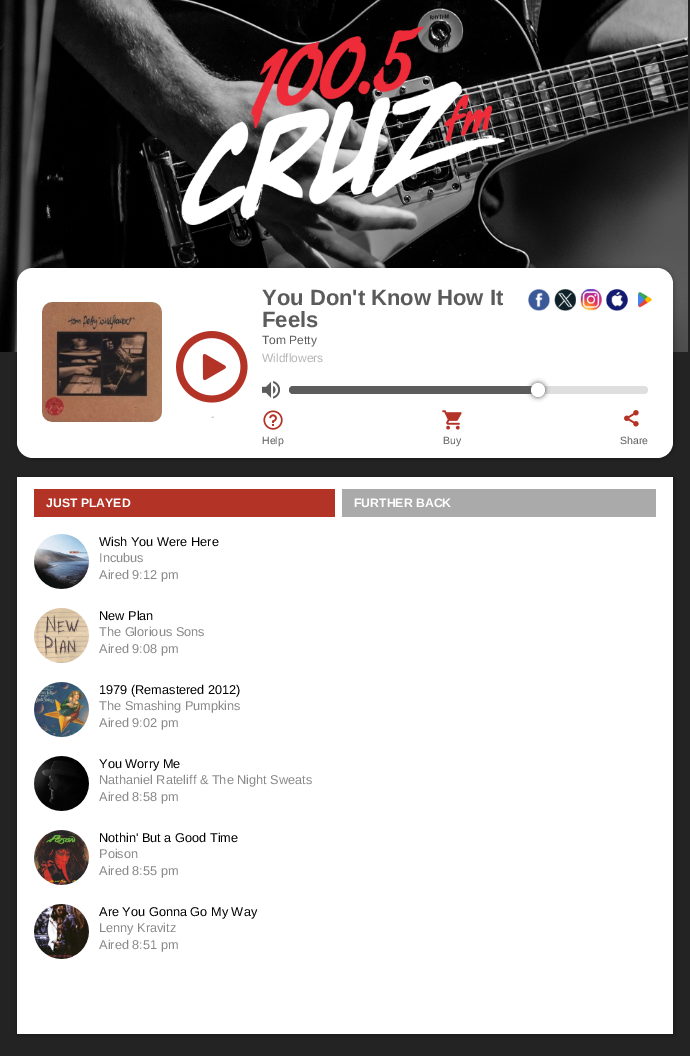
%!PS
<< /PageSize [690 1056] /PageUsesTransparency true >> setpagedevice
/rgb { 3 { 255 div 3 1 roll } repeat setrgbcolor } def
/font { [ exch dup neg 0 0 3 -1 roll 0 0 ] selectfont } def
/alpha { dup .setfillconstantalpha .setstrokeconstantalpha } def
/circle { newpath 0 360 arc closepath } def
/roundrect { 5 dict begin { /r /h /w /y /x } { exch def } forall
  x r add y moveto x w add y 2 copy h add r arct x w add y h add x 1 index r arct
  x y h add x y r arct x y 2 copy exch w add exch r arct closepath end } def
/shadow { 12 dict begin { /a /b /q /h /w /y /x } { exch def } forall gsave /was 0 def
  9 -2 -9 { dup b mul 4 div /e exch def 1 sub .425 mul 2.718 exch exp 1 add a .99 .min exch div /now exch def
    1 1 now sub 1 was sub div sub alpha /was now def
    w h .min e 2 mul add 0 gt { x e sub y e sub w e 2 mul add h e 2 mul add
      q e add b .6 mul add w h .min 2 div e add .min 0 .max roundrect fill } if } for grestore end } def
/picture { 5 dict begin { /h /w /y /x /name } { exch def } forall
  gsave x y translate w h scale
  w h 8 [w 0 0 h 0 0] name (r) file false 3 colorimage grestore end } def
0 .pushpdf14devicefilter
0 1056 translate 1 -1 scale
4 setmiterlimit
35 35 35 rgb
0 0 690 1056 rectfill
(img/1.rgb) 0 0 688 352 picture
(img/2.rgb) 181 26 324 199 picture
0 0 0 rgb
18 269 656 190 16 3 0.3 shadow
255 255 255 rgb
17 268 656 190 16 roundrect fill
(img/3.rgb) 42 302 120 120 picture
(img/4.rgb) 176 331 72 72 picture
(img/5.rgb) 528 289 22 22 picture
(img/6.rgb) 554 289 22 22 picture
(img/7.rgb) 580 289 22 22 picture
(img/8.rgb) 606 289 22 22 picture
(img/9.rgb) 638 292 14 16 picture
(img/10.rgb) 262 381 18 18 picture
223 223 223 rgb
289 386 359 8 4 roundrect fill
92 92 92 rgb
289 386 253 8 4 roundrect fill
85 85 85 rgb
531 383 14 14 7 2.5 1 shadow
255 255 255 rgb
538 390 7 circle fill
(img/11.rgb) 263 410 20 20 picture
(img/12.rgb) 442 410 20 20 picture
(img/13.rgb) 624 410 15 17 picture
0 0 0 rgb
18 478 656 557 0 3 0.3 shadow
[
  [17 477 656 557 255 255 255]
  [34 489 301 28 179 51 38]
  [342 489 314 28 170 170 170]
] { aload pop rgb rectfill } forall
(img/14.rgb) 34 534 55 55 picture
(img/15.rgb) 34 608 55 55 picture
(img/16.rgb) 34 682 55 55 picture
(img/17.rgb) 34 756 55 55 picture
(img/18.rgb) 34 830 55 55 picture
(img/19.rgb) 34 904 55 55 picture
/LiberationSans-Regular 10.5 font
211 420 moveto (-) show
/LiberationSans-Bold 22 font
91 91 91 rgb
262 305 moveto (You Don't Know How It) show
262 327 moveto (Feels) show
/LiberationSans-Regular 12 font
262 344 moveto (Tom Petty) show
181 181 181 rgb
262 362 moveto (Wildflowers) show
/LiberationSans-Regular 10.5 font
91 91 91 rgb
[
  [(Help) 262 444]
  [(Buy) 443 444]
  [(Share) 620 444]
] { aload pop moveto show } forall
/LiberationSans-Bold 12.25 font
255 255 255 rgb
46 507 moveto (JUST PLAYED) show
354 507 moveto (FURTHER BACK) show
/LiberationSans-Regular 12.75 font
0 0 0 rgb
99 546 moveto (Wish You Were Here) show
136 136 136 rgb
99 562 moveto (Incubus) show
99 579 moveto (Aired 9:12 pm) show
0 0 0 rgb
99 620 moveto (New Plan) show
136 136 136 rgb
99 636 moveto (The Glorious Sons) show
99 653 moveto (Aired 9:08 pm) show
0 0 0 rgb
99 694 moveto (1979 \(Remastered 2012\)) show
136 136 136 rgb
99 710 moveto (The Smashing Pumpkins) show
99 727 moveto (Aired 9:02 pm) show
0 0 0 rgb
99 768 moveto (You Worry Me) show
136 136 136 rgb
99 784 moveto (Nathaniel Rateliff & The Night Sweats) show
99 801 moveto (Aired 8:58 pm) show
0 0 0 rgb
99 842 moveto (Nothin' But a Good Time) show
136 136 136 rgb
99 858 moveto (Poison) show
99 875 moveto (Aired 8:55 pm) show
0 0 0 rgb
99 916 moveto (Are You Gonna Go My Way) show
136 136 136 rgb
99 932 moveto (Lenny Kravitz) show
99 949 moveto (Aired 8:51 pm) show
.poppdf14devicefilter showpage
